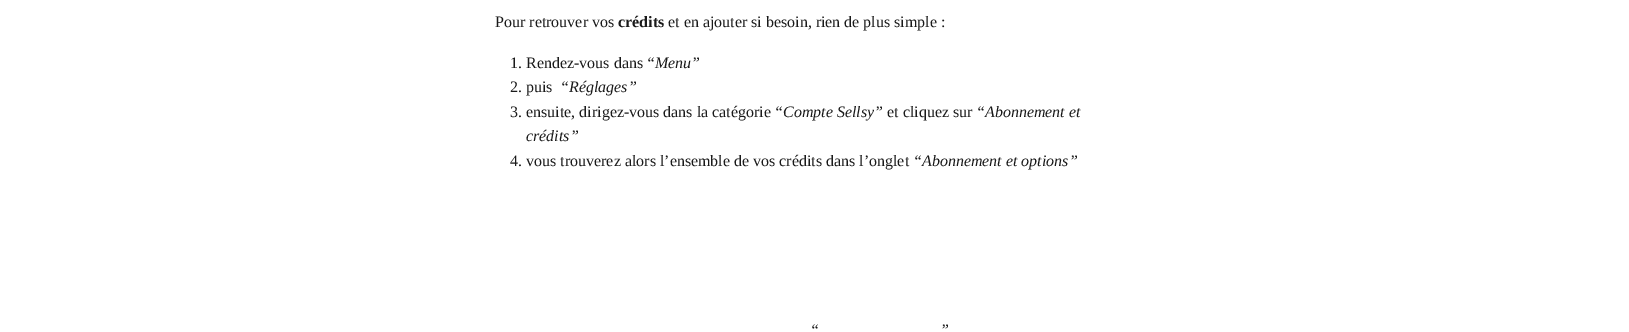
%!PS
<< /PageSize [1629 332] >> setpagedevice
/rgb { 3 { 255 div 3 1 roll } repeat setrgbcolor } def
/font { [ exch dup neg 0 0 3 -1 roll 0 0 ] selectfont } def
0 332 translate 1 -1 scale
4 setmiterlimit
255 255 255 rgb
0 0 1629 332 rectfill
/LiberationSerif-Regular 16 font
26 26 26 rgb
495 27 moveto (Pour retrouver vos) show
/LiberationSerif-Bold 16 font
618 27 moveto (crédits) show
/LiberationSerif-Regular 16 font
668 27 moveto (et en ajouter si besoin, rien de plus simple :) show
510 68 moveto (1. Rendez-vous dans) show
/LiberationSerif-Italic 16 font
646 68 moveto (“Menu”) show
/LiberationSerif-Regular 16 font
510 92 moveto (2. puis) show
/LiberationSerif-Italic 16 font
560 92 moveto (“Réglages”) show
/LiberationSerif-Regular 16 font
510 117 moveto (3. ensuite, dirigez-vous dans la catégorie) show
/LiberationSerif-Italic 16 font
774 117 moveto (“Compte Sellsy”) show
/LiberationSerif-Regular 16 font
887 117 moveto (et cliquez sur) show
/LiberationSerif-Italic 16 font
976 117 moveto (“Abonnement et) show
526 141 moveto (crédits”) show
/LiberationSerif-Regular 16 font
510 166 moveto (4. vous trouverez alors l’ensemble de vos crédits dans l’onglet) show
/LiberationSerif-Italic 16 font
[
  [(“Abonnement et options”) 913 166]
  [(“) 810 335]
  [(”) 940 335]
] { aload pop moveto show } forall
showpage
